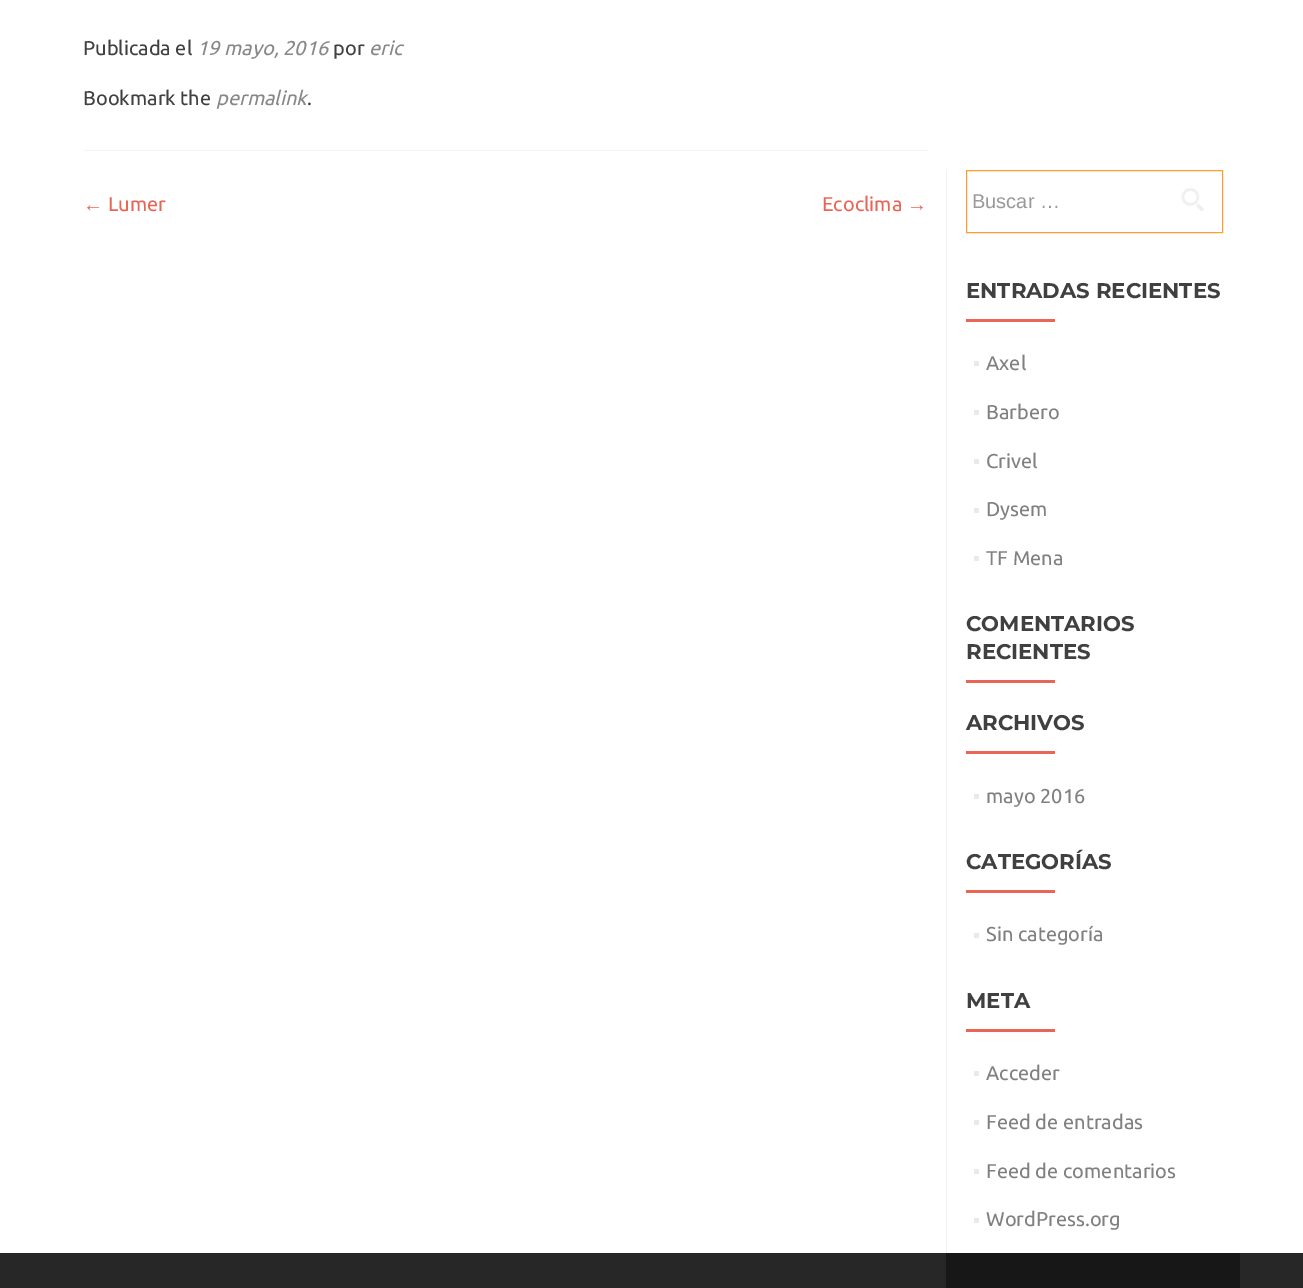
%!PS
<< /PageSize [1303 1288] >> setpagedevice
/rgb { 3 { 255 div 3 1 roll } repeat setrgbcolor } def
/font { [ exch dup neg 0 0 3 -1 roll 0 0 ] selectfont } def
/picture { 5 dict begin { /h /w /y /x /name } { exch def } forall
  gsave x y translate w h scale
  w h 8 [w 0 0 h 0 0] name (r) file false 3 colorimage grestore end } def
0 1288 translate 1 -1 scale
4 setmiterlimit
255 255 255 rgb
0 0 1303 1288 rectfill
242 242 242 rgb
84 150 844 1 rectfill
946 170 1 1083 rectfill
249 160 50 rgb
966.5 170.5 256 62 rectstroke
(img/1.rgb) 1181 187 23 24 picture
[
  [966 319 89 3 233 102 86]
  [974 361 5 5 233 233 233]
  [974 410 5 5 233 233 233]
  [974 459 5 5 233 233 233]
  [974 508 5 5 233 233 233]
  [974 556 5 5 233 233 233]
  [966 680 89 3 233 102 86]
  [966 751 89 3 233 102 86]
  [974 794 5 5 233 233 233]
  [966 890 89 3 233 102 86]
  [974 933 5 5 233 233 233]
  [966 1029 89 3 233 102 86]
  [974 1071 5 5 233 233 233]
  [974 1120 5 5 233 233 233]
  [974 1169 5 5 233 233 233]
  [974 1218 5 5 233 233 233]
  [0 1253 1303 35 39 39 39]
  [946 1253 294 35 23 23 23]
] { aload pop rgb rectfill } forall
/Ubuntu-Regular 20 font
64 64 64 rgb
83 55 moveto (Publicada el) show
/Ubuntu-Italic 20 font
136 136 136 rgb
197 55 moveto (19 mayo, 2016) show
/Ubuntu-Regular 20 font
64 64 64 rgb
333 55 moveto (por) show
/Ubuntu-Italic 20 font
136 136 136 rgb
369 55 moveto (eric) show
/Ubuntu-Regular 20 font
64 64 64 rgb
83 105 moveto (Bookmark the) show
/Ubuntu-Italic 20 font
136 136 136 rgb
216 105 moveto (permalink) show
/Ubuntu-Regular 20 font
64 64 64 rgb
307 105 moveto (.) show
/LiberationSans-Regular 20 font
233 102 86 rgb
83 211 moveto (←) show
/Ubuntu-Regular 20 font
108 211 moveto (Lumer) show
822 211 moveto (Ecoclima) show
/LiberationSans-Regular 20 font
907 211 moveto (→) show
153 153 153 rgb
972 208 moveto (Buscar …) show
/Montserrat-Thin 21.25 font
64 64 64 rgb
966 298 moveto (ENTRADAS RECIENTES) show
/Ubuntu-Regular 20 font
128 128 128 rgb
[
  [(Axel) 986 370]
  [(Barbero) 986 419]
  [(Crivel) 986 468]
  [(Dysem) 986 516]
  [(TF Mena) 986 565]
] { aload pop moveto show } forall
/Montserrat-Thin 21.25 font
64 64 64 rgb
[
  [(COMENTARIOS) 966 631]
  [(RECIENTES) 966 659]
  [(ARCHIVOS) 966 730]
] { aload pop moveto show } forall
/Ubuntu-Regular 20 font
128 128 128 rgb
986 803 moveto (mayo 2016) show
/Montserrat-Thin 21.25 font
64 64 64 rgb
966 869 moveto (CATEGORÍAS) show
/Ubuntu-Regular 20 font
128 128 128 rgb
986 941 moveto (Sin categoría) show
/Montserrat-Thin 21.25 font
64 64 64 rgb
966 1008 moveto (META) show
/Ubuntu-Regular 20 font
128 128 128 rgb
[
  [(Acceder) 986 1080]
  [(Feed de entradas) 986 1129]
  [(Feed de comentarios) 986 1178]
  [(WordPress.org) 986 1226]
] { aload pop moveto show } forall
showpage
